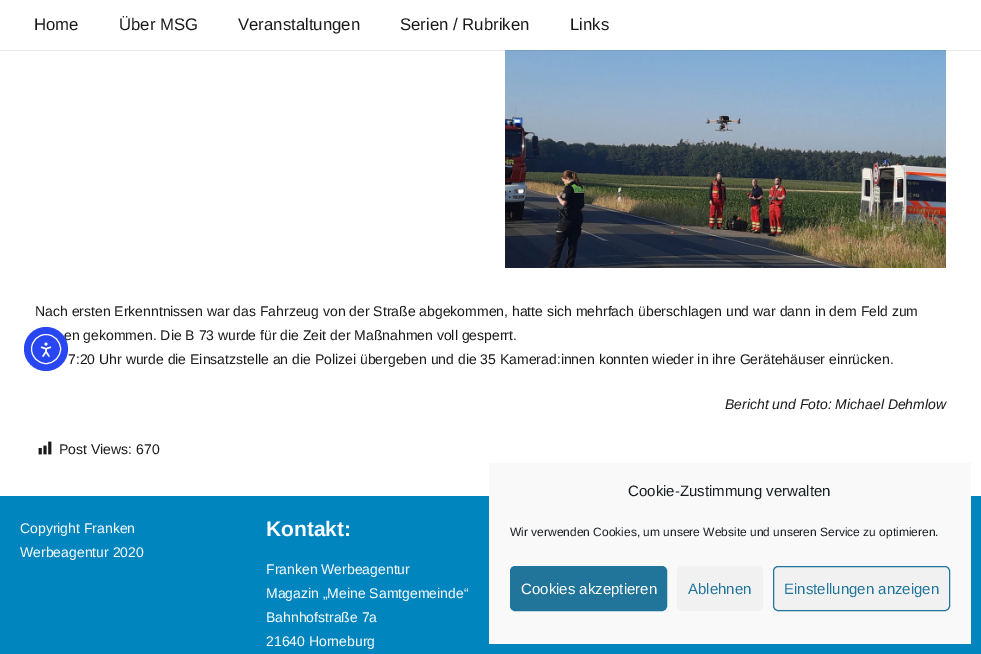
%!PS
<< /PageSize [981 654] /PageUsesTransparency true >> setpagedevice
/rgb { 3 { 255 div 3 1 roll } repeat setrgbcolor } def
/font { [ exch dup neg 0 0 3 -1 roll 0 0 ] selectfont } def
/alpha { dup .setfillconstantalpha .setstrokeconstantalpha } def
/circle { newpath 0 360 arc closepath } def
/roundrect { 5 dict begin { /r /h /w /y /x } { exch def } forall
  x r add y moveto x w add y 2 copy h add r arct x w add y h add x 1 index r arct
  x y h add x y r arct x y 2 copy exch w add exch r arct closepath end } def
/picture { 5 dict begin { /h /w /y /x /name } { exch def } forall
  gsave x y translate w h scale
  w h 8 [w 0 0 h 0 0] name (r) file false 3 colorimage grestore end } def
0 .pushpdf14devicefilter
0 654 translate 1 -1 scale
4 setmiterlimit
255 255 255 rgb
0 0 981 654 rectfill
(img/1.rgb) 505 50 441 218 picture
0.08 alpha
0 0 0 rgb
0 50 981 1 rectfill
1 alpha
(img/2.rgb) 38 441 14 14 picture
0 133 191 rgb
0 496 981 158 rectfill
249 249 249 rgb
489 463 482 181 rectfill
33 117 155 rgb
510.5 566.5 156 44 4.5 roundrect gsave fill grestore
stroke
241 241 241 rgb
677 566 86 45 5 roundrect fill
773.5 566.5 176 44 4.5 roundrect gsave fill grestore
33 117 155 rgb
stroke
/LiberationSans-Regular 16.75 font
26 26 26 rgb
[
  [(Home) 34 30]
  [(Über MSG) 119 30]
  [(Veranstaltungen) 238 30]
  [(Serien / Rubriken) 400 30]
  [(Links) 570 30]
] { aload pop moveto show } forall
/LiberationSans-Regular 14 font
[
  [(Nach ersten Erkenntnissen war das Fahrzeug von der Straße abgekommen, hatte sich mehrfach überschlagen und war dann in dem Feld zum) 35 316]
  [(en gekommen. Die B 73 wurde für die Zeit der Maßnahmen voll gesperrt.) 64 340]
  [(7:20 Uhr wurde die Einsatzstelle an die Polizei übergeben und die 35 Kamerad:innen konnten wieder in ihre Gerätehäuser einrücken.) 68 364]
] { aload pop moveto show } forall
/LiberationSans-Italic 14 font
725 409 moveto (Bericht und Foto: Michael Dehmlow) show
/LiberationSans-Regular 14 font
59 454 moveto (Post Views: 670) show
40 71 243 rgb
46 349 22 circle fill
255 255 255 rgb
46 349 14.5 circle stroke
(img/3.rgb) 40 342 12 15 picture
20 533 moveto (Copyright Franken) show
20 557 moveto (Werbeagentur 2020) show
/LiberationSans-Bold 21 font
266 536 moveto (Kontakt:) show
/LiberationSans-Regular 14 font
[
  [(Franken Werbeagentur) 266 574]
  [(Magazin „Meine Samtgemeinde“) 266 598]
  [(Bahnhofstraße 7a) 266 622]
  [(21640 Horneburg) 266 646]
] { aload pop moveto show } forall
/LiberationSans-Regular 15 font
25 30 35 rgb
628 496 moveto (Cookie-Zustimmung verwalten) show
/LiberationSans-Regular 12 font
510 536 moveto (Wir verwenden Cookies, um unsere Website und unseren Service zu optimieren.) show
/LiberationSans-Regular 15 font
255 255 255 rgb
521 594 moveto (Cookies akzeptieren) show
33 117 155 rgb
688 594 moveto (Ablehnen) show
784 594 moveto (Einstellungen anzeigen) show
.poppdf14devicefilter showpage
